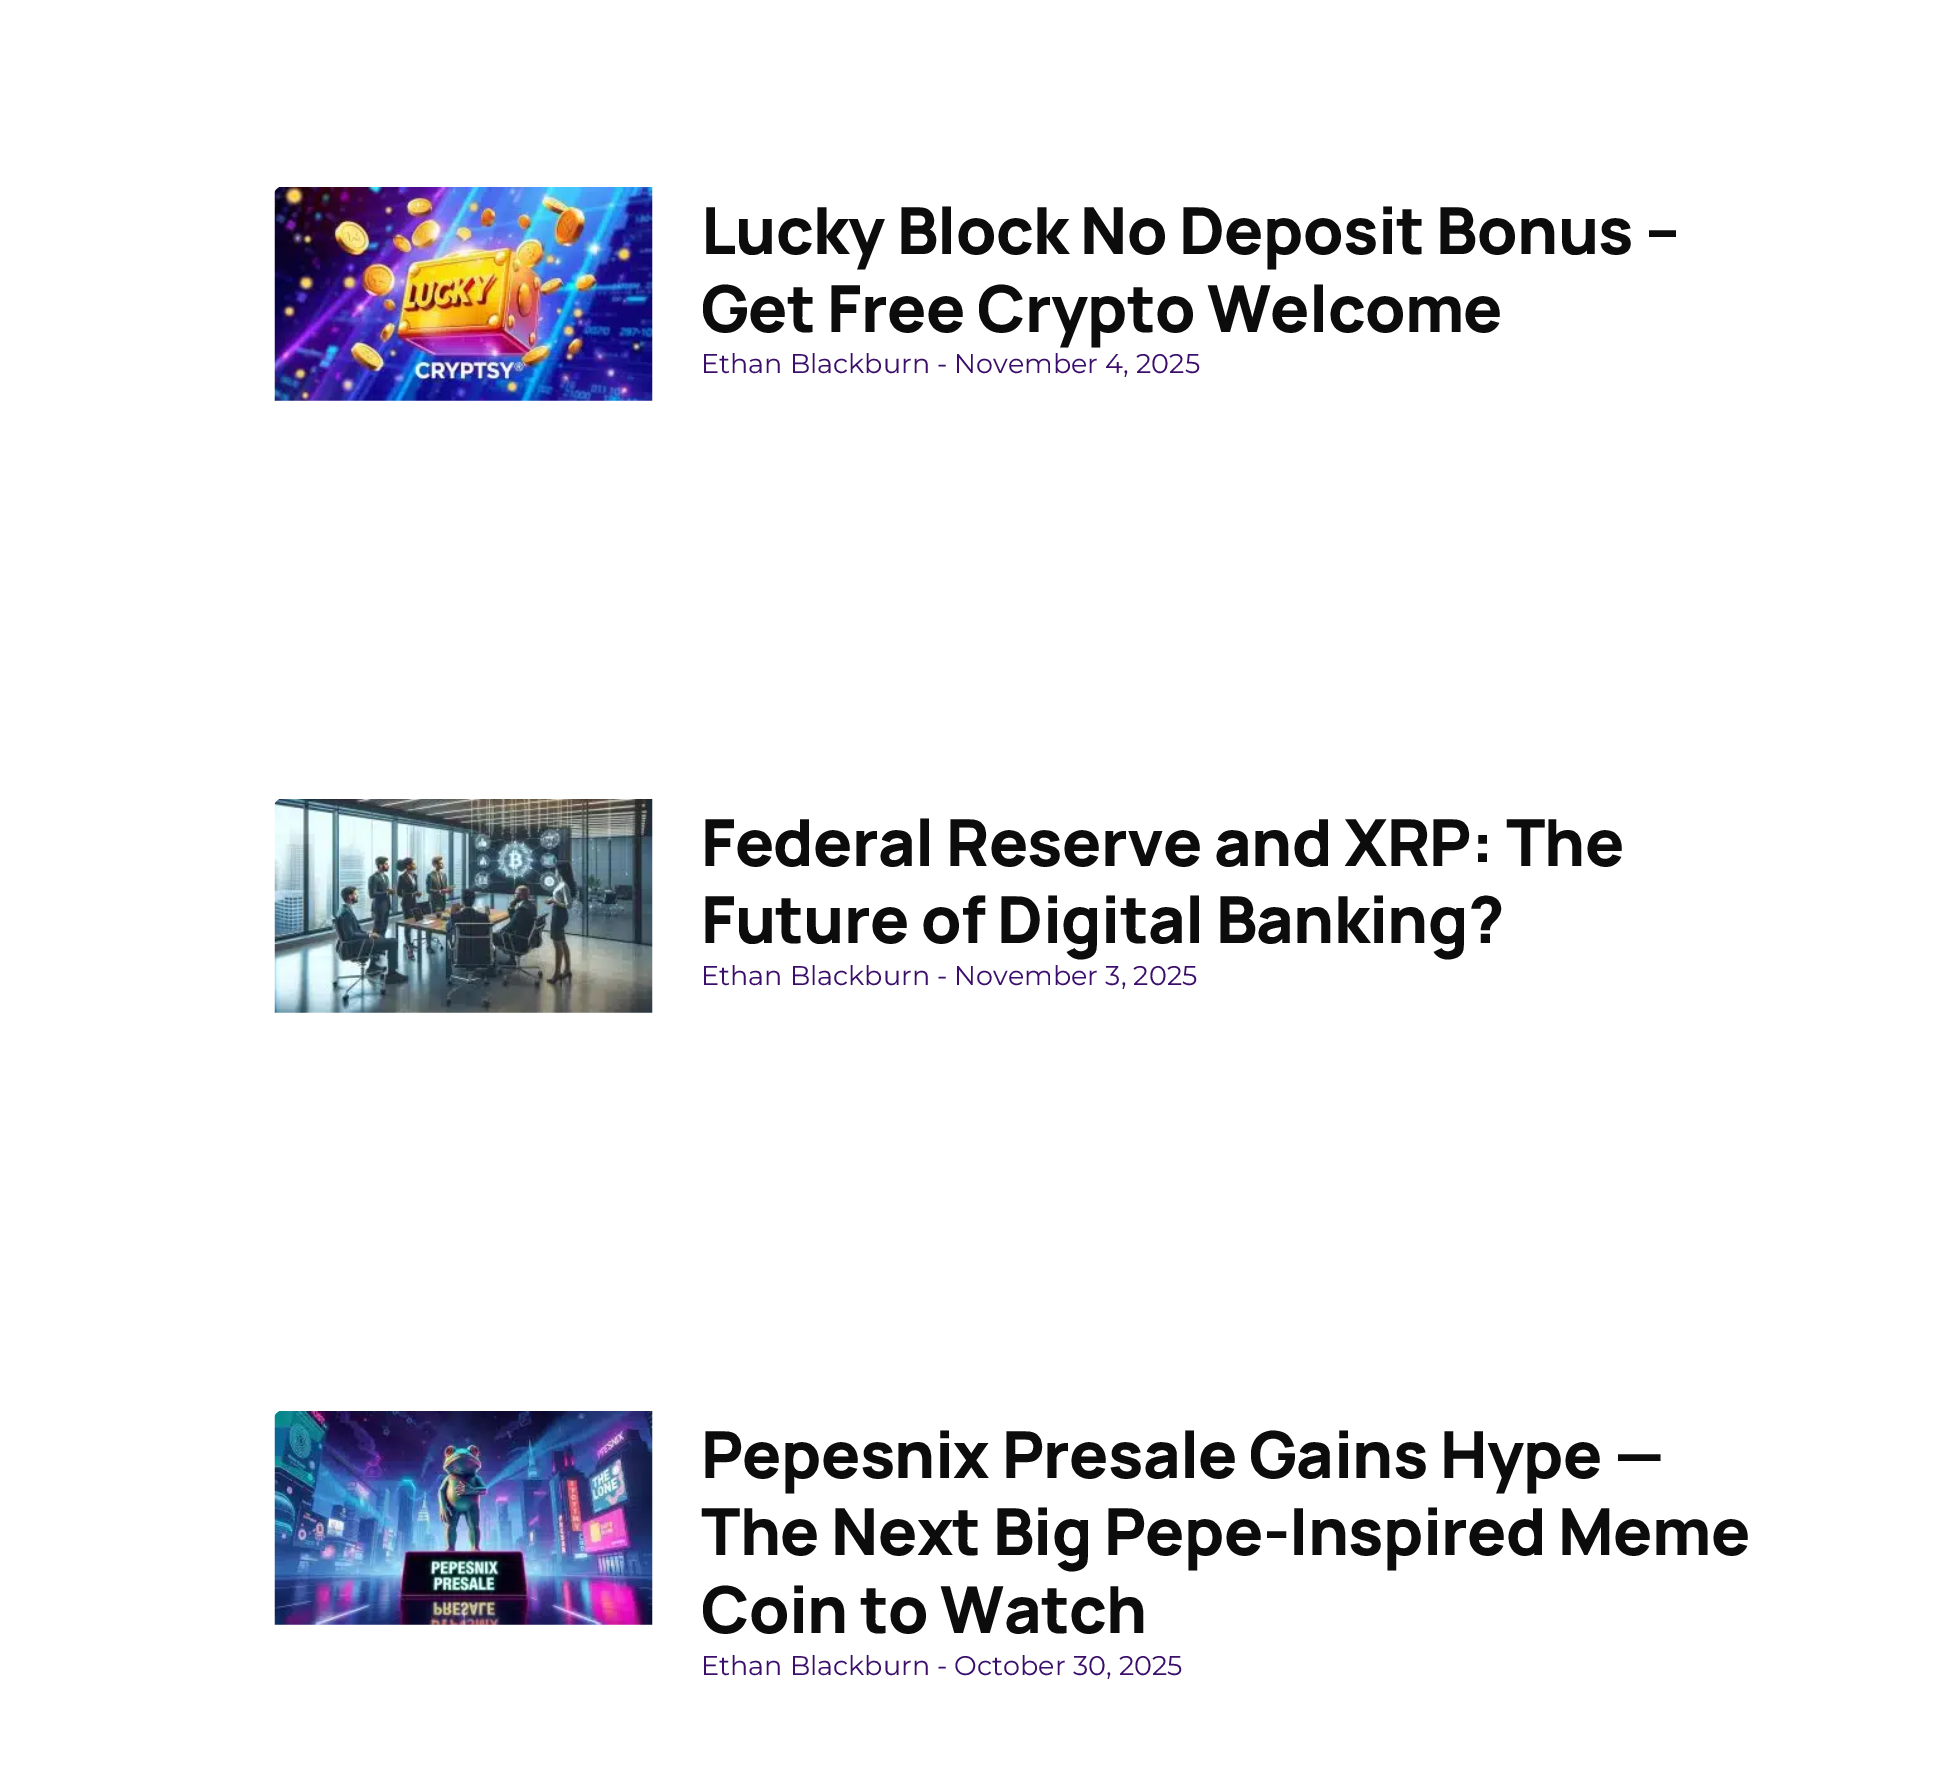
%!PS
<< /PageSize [1943 1770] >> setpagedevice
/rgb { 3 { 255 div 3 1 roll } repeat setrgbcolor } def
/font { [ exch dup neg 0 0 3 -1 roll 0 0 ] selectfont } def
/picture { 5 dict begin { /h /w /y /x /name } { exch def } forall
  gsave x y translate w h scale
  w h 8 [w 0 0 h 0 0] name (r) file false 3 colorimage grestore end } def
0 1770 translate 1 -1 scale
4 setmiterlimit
255 255 255 rgb
0 0 1943 1770 rectfill
(img/1.rgb) 274 187 379 214 picture
(img/2.rgb) 274 799 379 214 picture
(img/3.rgb) 274 1411 379 214 picture
/Manrope-ExtraBold 64.75 font
12 12 12 rgb
701 254 moveto -0.65 0 (Lucky Block No Deposit Bonus –) ashow
701 332 moveto -0.65 0 (Get Free Crypto Welcome) ashow
/Montserrat-Regular 27 font
59 14 107 rgb
701 373 moveto (Ethan Blackburn) show
937 373 moveto (- November 4, 2025) show
/Manrope-ExtraBold 64.75 font
12 12 12 rgb
701 866 moveto -0.65 0 (Federal Reserve and XRP: The) ashow
701 943 moveto -0.65 0 (Future of Digital Banking?) ashow
/Montserrat-Regular 27 font
59 14 107 rgb
701 985 moveto (Ethan Blackburn) show
937 985 moveto (- November 3, 2025) show
/Manrope-ExtraBold 64.75 font
12 12 12 rgb
701 1478 moveto -0.65 0 (Pepesnix Presale Gains Hype —) ashow
701 1555 moveto -0.65 0 (The Next Big Pepe-Inspired Meme) ashow
701 1633 moveto -0.65 0 (Coin to Watch) ashow
/Montserrat-Regular 27 font
59 14 107 rgb
701 1675 moveto (Ethan Blackburn) show
937 1675 moveto (- October 30, 2025) show
showpage
